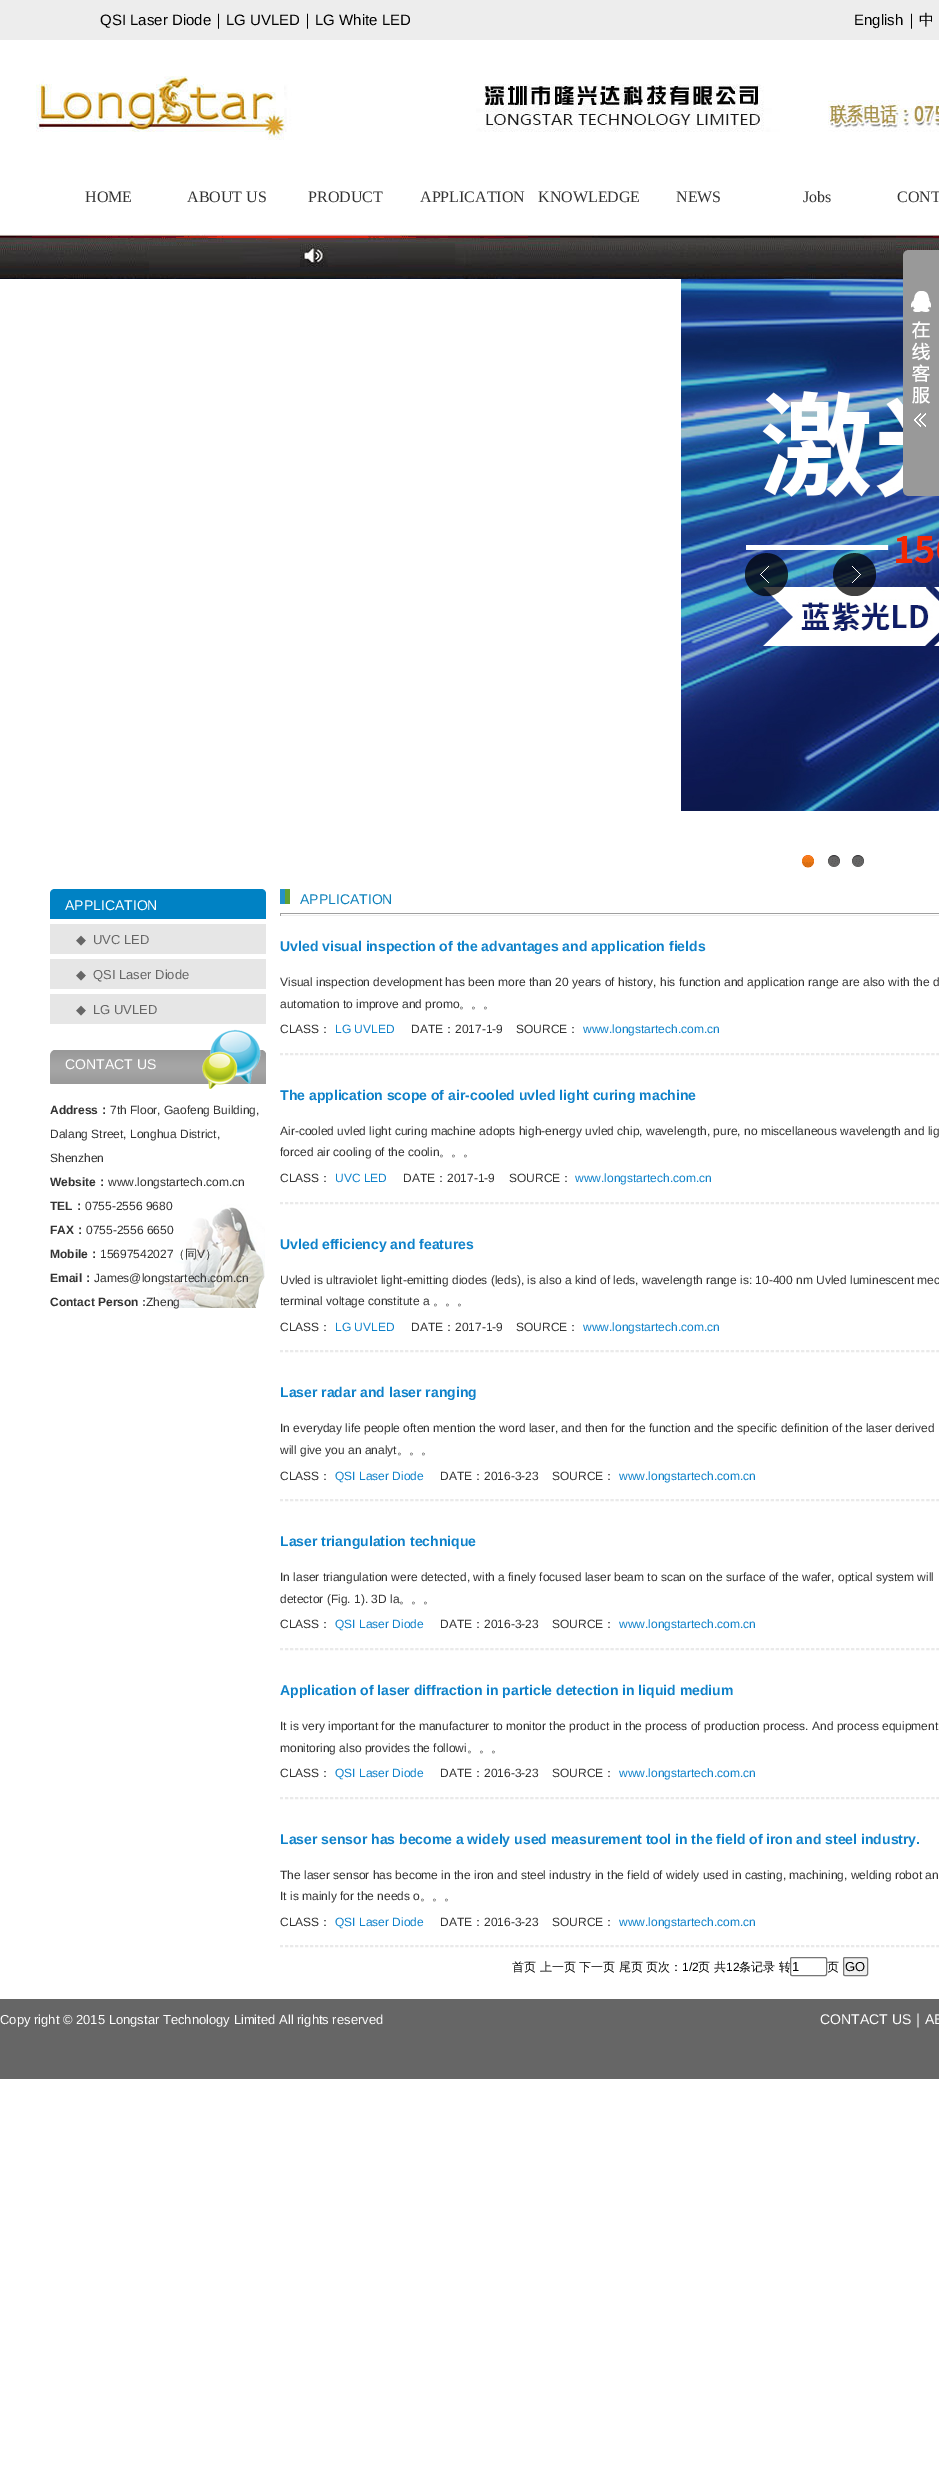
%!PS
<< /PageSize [939 2478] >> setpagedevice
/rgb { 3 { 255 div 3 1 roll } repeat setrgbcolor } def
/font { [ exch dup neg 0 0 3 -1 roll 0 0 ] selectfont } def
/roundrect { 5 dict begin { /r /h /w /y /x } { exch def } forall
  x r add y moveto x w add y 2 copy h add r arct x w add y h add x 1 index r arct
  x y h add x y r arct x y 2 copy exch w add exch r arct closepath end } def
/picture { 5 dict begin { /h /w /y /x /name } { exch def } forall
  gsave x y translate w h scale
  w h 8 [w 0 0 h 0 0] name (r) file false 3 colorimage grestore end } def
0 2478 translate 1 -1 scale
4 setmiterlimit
255 255 255 rgb
0 0 939 2478 rectfill
237 237 237 rgb
0 0 939 40 rectfill
(img/1.rgb) 36 76 903 64 picture
(img/2.rgb) 0 234 939 45 picture
(img/3.rgb) 300 244 28 23 picture
(img/5.rgb) 681 279 258 532 picture
153 153 153 rgb
909 250 moveto 939 250 lineto 939 496 lineto 909 496 lineto 905.5 496 903 493.5 903 490 curveto 903 256 lineto 903 252.5 905.5 250 909 250 curveto closepath fill
(img/4.rgb) 911 291 20 136 picture
(img/6.rgb) 745 553 43 43 picture
(img/7.rgb) 833 553 43 43 picture
(img/8.rgb) 802 855 14 13 picture
(img/9.rgb) 827 855 13 12 picture
(img/9.rgb) 851 855 13 12 picture
0 130 196 rgb
55 889 moveto 261 889 lineto 264 889 266 891 266 894 curveto 266 919 lineto 50 919 lineto 50 894 lineto 50 891 52 889 55 889 curveto closepath fill
[
  [50 924 216 30 230 230 230]
  [50 959 216 30 230 230 230]
  [50 994 216 30 230 230 230]
] { aload pop rgb rectfill } forall
(img/10.rgb) 50 1029 216 279 picture
(img/11.rgb) 280 889 10 15 picture
[
  [280 913 659 1 159 159 159]
  [280 915 659 1 238 238 238]
  [280 913 1 3 159 159 159]
] { aload pop rgb rectfill } forall
234 234 234 rgb
[3 2.01] 0 setdash
280 1053.5 moveto 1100 1053.5 lineto stroke
280 1054.5 moveto 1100 1054.5 lineto stroke
280 1202.5 moveto 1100 1202.5 lineto stroke
280 1203.5 moveto 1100 1203.5 lineto stroke
280 1350.5 moveto 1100 1350.5 lineto stroke
280 1351.5 moveto 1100 1351.5 lineto stroke
280 1499.5 moveto 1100 1499.5 lineto stroke
280 1500.5 moveto 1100 1500.5 lineto stroke
280 1648.5 moveto 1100 1648.5 lineto stroke
280 1649.5 moveto 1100 1649.5 lineto stroke
280 1797.5 moveto 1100 1797.5 lineto stroke
280 1798.5 moveto 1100 1798.5 lineto stroke
280 1945.5 moveto 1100 1945.5 lineto stroke
280 1946.5 moveto 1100 1946.5 lineto stroke
239 239 239 rgb
843.5 1957.5 24 18 1.5 roundrect gsave fill grestore
118 118 118 rgb
[] 0 setdash
stroke
102 102 102 rgb
0 1999 939 80 rectfill
/LiberationSans-Regular 15 font
0 0 0 rgb
100 25 moveto (QSI Laser Diode) show
/WenQuanYiZenHei-Medium 15 font
211 25 moveto (｜) show
/LiberationSans-Regular 15 font
226 25 moveto (LG UVLED) show
/WenQuanYiZenHei-Medium 15 font
300 25 moveto (｜) show
/LiberationSans-Regular 15 font
315 25 moveto (LG White LED) show
854 25 moveto (English) show
/WenQuanYiZenHei-Medium 15 font
904 25 moveto (｜中) show
/LiberationSerif-Regular 16 font
51 51 51 rgb
[
  [(HOME) 85 202]
  [(ABOUT US) 187 202]
  [(PRODUCT) 308 202]
  [(APPLICATION) 420 202]
  [(KNOWLEDGE) 538 202]
  [(NEWS) 676 202]
  [(Jobs) 803 202]
  [(CONT) 897 202]
] { aload pop moveto show } forall
/LiberationSans-Regular 14 font
255 255 255 rgb
65 910 moveto (APPLICATION) show
/DejaVuSans-Regular 13 font
102 102 102 rgb
76 944 moveto (◆) show
/LiberationSans-Regular 13 font
93 944 moveto (UVC LED) show
/DejaVuSans-Regular 13 font
76 979 moveto (◆) show
/LiberationSans-Regular 13 font
93 979 moveto (QSI Laser Diode) show
/DejaVuSans-Regular 13 font
76 1014 moveto (◆) show
/LiberationSans-Regular 13 font
93 1014 moveto (LG UVLED) show
/LiberationSans-Regular 14 font
255 255 255 rgb
65 1069 moveto (CONTACT US) show
/LiberationSans-Bold 12 font
51 51 51 rgb
50 1114 moveto (Address) show
/WenQuanYiZenHei-Bold 12 font
98 1114 moveto (：) show
/LiberationSans-Regular 12 font
[
  [(7th Floor, Gaofeng Building,) 110 1114]
  [(Dalang Street, Longhua District,) 50 1138]
  [(Shenzhen) 50 1162]
] { aload pop moveto show } forall
/LiberationSans-Bold 12 font
50 1186 moveto (Website) show
/WenQuanYiZenHei-Bold 12 font
96 1186 moveto (：) show
/LiberationSans-Regular 12 font
108 1186 moveto (www.longstartech.com.cn) show
/LiberationSans-Bold 12 font
50 1210 moveto (TEL) show
/WenQuanYiZenHei-Bold 12 font
73 1210 moveto (：) show
/LiberationSans-Regular 12 font
85 1210 moveto (0755-2556 9680) show
/LiberationSans-Bold 12 font
50 1234 moveto (FAX) show
/WenQuanYiZenHei-Bold 12 font
74 1234 moveto (：) show
/LiberationSans-Regular 12 font
86 1234 moveto (0755-2556 6650) show
/LiberationSans-Bold 12 font
50 1258 moveto (Mobile) show
/WenQuanYiZenHei-Bold 12 font
88 1258 moveto (：) show
/LiberationSans-Regular 12 font
100 1258 moveto (15697542027) show
/WenQuanYiZenHei-Medium 12 font
173 1258 moveto (（同) show
/LiberationSans-Regular 12 font
197 1258 moveto (V) show
/WenQuanYiZenHei-Medium 12 font
205 1258 moveto (）) show
/LiberationSans-Bold 12 font
50 1282 moveto (Email) show
/WenQuanYiZenHei-Bold 12 font
82 1282 moveto (：) show
/LiberationSans-Regular 12 font
94 1282 moveto (James@longstartech.com.cn) show
/LiberationSans-Bold 12 font
50 1306 moveto (Contact Person :) show
/LiberationSans-Regular 12 font
146 1306 moveto (Zheng) show
/LiberationSans-Regular 14 font
15 130 188 rgb
300 904 moveto (APPLICATION) show
/LiberationSans-Bold 14 font
15 130 202 rgb
280 951 moveto (Uvled visual inspection of the advantages and application fields) show
/LiberationSans-Regular 12 font
51 51 51 rgb
280 986 moveto (Visual inspection development has been more than 20 years of history, his function and application range are also with the d) show
280 1008 moveto (automation to improve and promo) show
/WenQuanYiZenHei-Medium 12 font
459 1008 moveto (。。。) show
/LiberationSans-Regular 12 font
280 1033 moveto (CLASS) show
/WenQuanYiZenHei-Medium 12 font
319 1033 moveto (：) show
/LiberationSans-Regular 12 font
15 130 202 rgb
335 1033 moveto (LG UVLED) show
51 51 51 rgb
411 1033 moveto (DATE) show
/WenQuanYiZenHei-Medium 12 font
443 1033 moveto (：) show
/LiberationSans-Regular 12 font
455 1033 moveto (2017-1-9) show
516 1033 moveto (SOURCE) show
/WenQuanYiZenHei-Medium 12 font
567 1033 moveto (：) show
/LiberationSans-Regular 12 font
15 130 202 rgb
583 1033 moveto (www.longstartech.com.cn) show
/LiberationSans-Bold 14 font
280 1100 moveto (The application scope of air-cooled uvled light curing machine) show
/LiberationSans-Regular 12 font
51 51 51 rgb
280 1135 moveto (Air-cooled uvled light curing machine adopts high-energy uvled chip, wavelength, pure, no miscellaneous wavelength and lig) show
280 1156 moveto (forced air cooling of the coolin) show
/WenQuanYiZenHei-Medium 12 font
439 1156 moveto (。。。) show
/LiberationSans-Regular 12 font
280 1182 moveto (CLASS) show
/WenQuanYiZenHei-Medium 12 font
319 1182 moveto (：) show
/LiberationSans-Regular 12 font
15 130 202 rgb
335 1182 moveto (UVC LED) show
51 51 51 rgb
403 1182 moveto (DATE) show
/WenQuanYiZenHei-Medium 12 font
435 1182 moveto (：) show
/LiberationSans-Regular 12 font
447 1182 moveto (2017-1-9) show
509 1182 moveto (SOURCE) show
/WenQuanYiZenHei-Medium 12 font
560 1182 moveto (：) show
/LiberationSans-Regular 12 font
15 130 202 rgb
575 1182 moveto (www.longstartech.com.cn) show
/LiberationSans-Bold 14 font
280 1249 moveto (Uvled efficiency and features) show
/LiberationSans-Regular 12 font
51 51 51 rgb
280 1284 moveto (Uvled is ultraviolet light-emitting diodes \(leds\), is also a kind of leds, wavelength range is: 10-400 nm Uvled luminescent mec) show
280 1305 moveto (terminal voltage constitute a) show
/WenQuanYiZenHei-Medium 12 font
433 1305 moveto (。。。) show
/LiberationSans-Regular 12 font
280 1331 moveto (CLASS) show
/WenQuanYiZenHei-Medium 12 font
319 1331 moveto (：) show
/LiberationSans-Regular 12 font
15 130 202 rgb
335 1331 moveto (LG UVLED) show
51 51 51 rgb
411 1331 moveto (DATE) show
/WenQuanYiZenHei-Medium 12 font
443 1331 moveto (：) show
/LiberationSans-Regular 12 font
455 1331 moveto (2017-1-9) show
516 1331 moveto (SOURCE) show
/WenQuanYiZenHei-Medium 12 font
567 1331 moveto (：) show
/LiberationSans-Regular 12 font
15 130 202 rgb
583 1331 moveto (www.longstartech.com.cn) show
/LiberationSans-Bold 14 font
280 1397 moveto (Laser radar and laser ranging) show
/LiberationSans-Regular 12 font
51 51 51 rgb
280 1432 moveto (In everyday life people often mention the word laser, and then for the function and the specific definition of the laser derived) show
280 1454 moveto (will give you an analyt) show
/WenQuanYiZenHei-Medium 12 font
397 1454 moveto (。。。) show
/LiberationSans-Regular 12 font
280 1480 moveto (CLASS) show
/WenQuanYiZenHei-Medium 12 font
319 1480 moveto (：) show
/LiberationSans-Regular 12 font
15 130 202 rgb
335 1480 moveto (QSI Laser Diode) show
51 51 51 rgb
440 1480 moveto (DATE) show
/WenQuanYiZenHei-Medium 12 font
472 1480 moveto (：) show
/LiberationSans-Regular 12 font
484 1480 moveto (2016-3-23) show
552 1480 moveto (SOURCE) show
/WenQuanYiZenHei-Medium 12 font
603 1480 moveto (：) show
/LiberationSans-Regular 12 font
15 130 202 rgb
619 1480 moveto (www.longstartech.com.cn) show
/LiberationSans-Bold 14 font
280 1546 moveto (Laser triangulation technique) show
/LiberationSans-Regular 12 font
51 51 51 rgb
280 1581 moveto (In laser triangulation were detected, with a finely focused laser beam to scan on the surface of the wafer, optical system will) show
280 1603 moveto (detector \(Fig. 1\). 3D la) show
/WenQuanYiZenHei-Medium 12 font
399 1603 moveto (。。。) show
/LiberationSans-Regular 12 font
280 1628 moveto (CLASS) show
/WenQuanYiZenHei-Medium 12 font
319 1628 moveto (：) show
/LiberationSans-Regular 12 font
15 130 202 rgb
335 1628 moveto (QSI Laser Diode) show
51 51 51 rgb
440 1628 moveto (DATE) show
/WenQuanYiZenHei-Medium 12 font
472 1628 moveto (：) show
/LiberationSans-Regular 12 font
484 1628 moveto (2016-3-23) show
552 1628 moveto (SOURCE) show
/WenQuanYiZenHei-Medium 12 font
603 1628 moveto (：) show
/LiberationSans-Regular 12 font
15 130 202 rgb
619 1628 moveto (www.longstartech.com.cn) show
/LiberationSans-Bold 14 font
280 1695 moveto (Application of laser diffraction in particle detection in liquid medium) show
/LiberationSans-Regular 12 font
51 51 51 rgb
280 1730 moveto (It is very important for the manufacturer to monitor the product in the process of production process. And process equipment) show
280 1752 moveto (monitoring also provides the followi) show
/WenQuanYiZenHei-Medium 12 font
467 1752 moveto (。。。) show
/LiberationSans-Regular 12 font
280 1777 moveto (CLASS) show
/WenQuanYiZenHei-Medium 12 font
319 1777 moveto (：) show
/LiberationSans-Regular 12 font
15 130 202 rgb
335 1777 moveto (QSI Laser Diode) show
51 51 51 rgb
440 1777 moveto (DATE) show
/WenQuanYiZenHei-Medium 12 font
472 1777 moveto (：) show
/LiberationSans-Regular 12 font
484 1777 moveto (2016-3-23) show
552 1777 moveto (SOURCE) show
/WenQuanYiZenHei-Medium 12 font
603 1777 moveto (：) show
/LiberationSans-Regular 12 font
15 130 202 rgb
619 1777 moveto (www.longstartech.com.cn) show
/LiberationSans-Bold 14 font
280 1844 moveto (Laser sensor has become a widely used measurement tool in the field of iron and steel industry.) show
/LiberationSans-Regular 12 font
51 51 51 rgb
280 1879 moveto (The laser sensor has become in the iron and steel industry in the field of widely used in casting, machining, welding robot an) show
280 1900 moveto (It is mainly for the needs o) show
/WenQuanYiZenHei-Medium 12 font
420 1900 moveto (。。。) show
/LiberationSans-Regular 12 font
280 1926 moveto (CLASS) show
/WenQuanYiZenHei-Medium 12 font
319 1926 moveto (：) show
/LiberationSans-Regular 12 font
15 130 202 rgb
335 1926 moveto (QSI Laser Diode) show
51 51 51 rgb
440 1926 moveto (DATE) show
/WenQuanYiZenHei-Medium 12 font
472 1926 moveto (：) show
/LiberationSans-Regular 12 font
484 1926 moveto (2016-3-23) show
552 1926 moveto (SOURCE) show
/WenQuanYiZenHei-Medium 12 font
603 1926 moveto (：) show
/LiberationSans-Regular 12 font
15 130 202 rgb
619 1926 moveto (www.longstartech.com.cn) show
/WenQuanYiZenHei-Medium 12 font
0 0 0 rgb
512 1971 moveto (首页 上一页 下一页 尾页 页次：) show
/LiberationSans-Regular 12 font
682 1971 moveto (1/2) show
/WenQuanYiZenHei-Medium 12 font
698 1971 moveto (页 共) show
/LiberationSans-Regular 12 font
726 1971 moveto (12) show
/WenQuanYiZenHei-Medium 12 font
739 1971 moveto (条记录 转) show
255 255 255 rgb
790.5 1957.5 36 18 1.5 roundrect gsave fill grestore
118 118 118 rgb
stroke
/LiberationSans-Regular 13 font
0 0 0 rgb
792 1971 moveto (1) show
/WenQuanYiZenHei-Medium 12 font
827 1971 moveto (页) show
/LiberationSans-Regular 13 font
845 1971 moveto (GO) show
255 255 255 rgb
0 2024 moveto (Copy right © 2015 Longstar Technology Limited All rights reserved) show
/LiberationSans-Regular 14 font
820 2024 moveto (CONTACT US) show
/WenQuanYiZenHei-Medium 14 font
911 2024 moveto (｜) show
/LiberationSans-Regular 14 font
925 2024 moveto (AB) show
showpage
